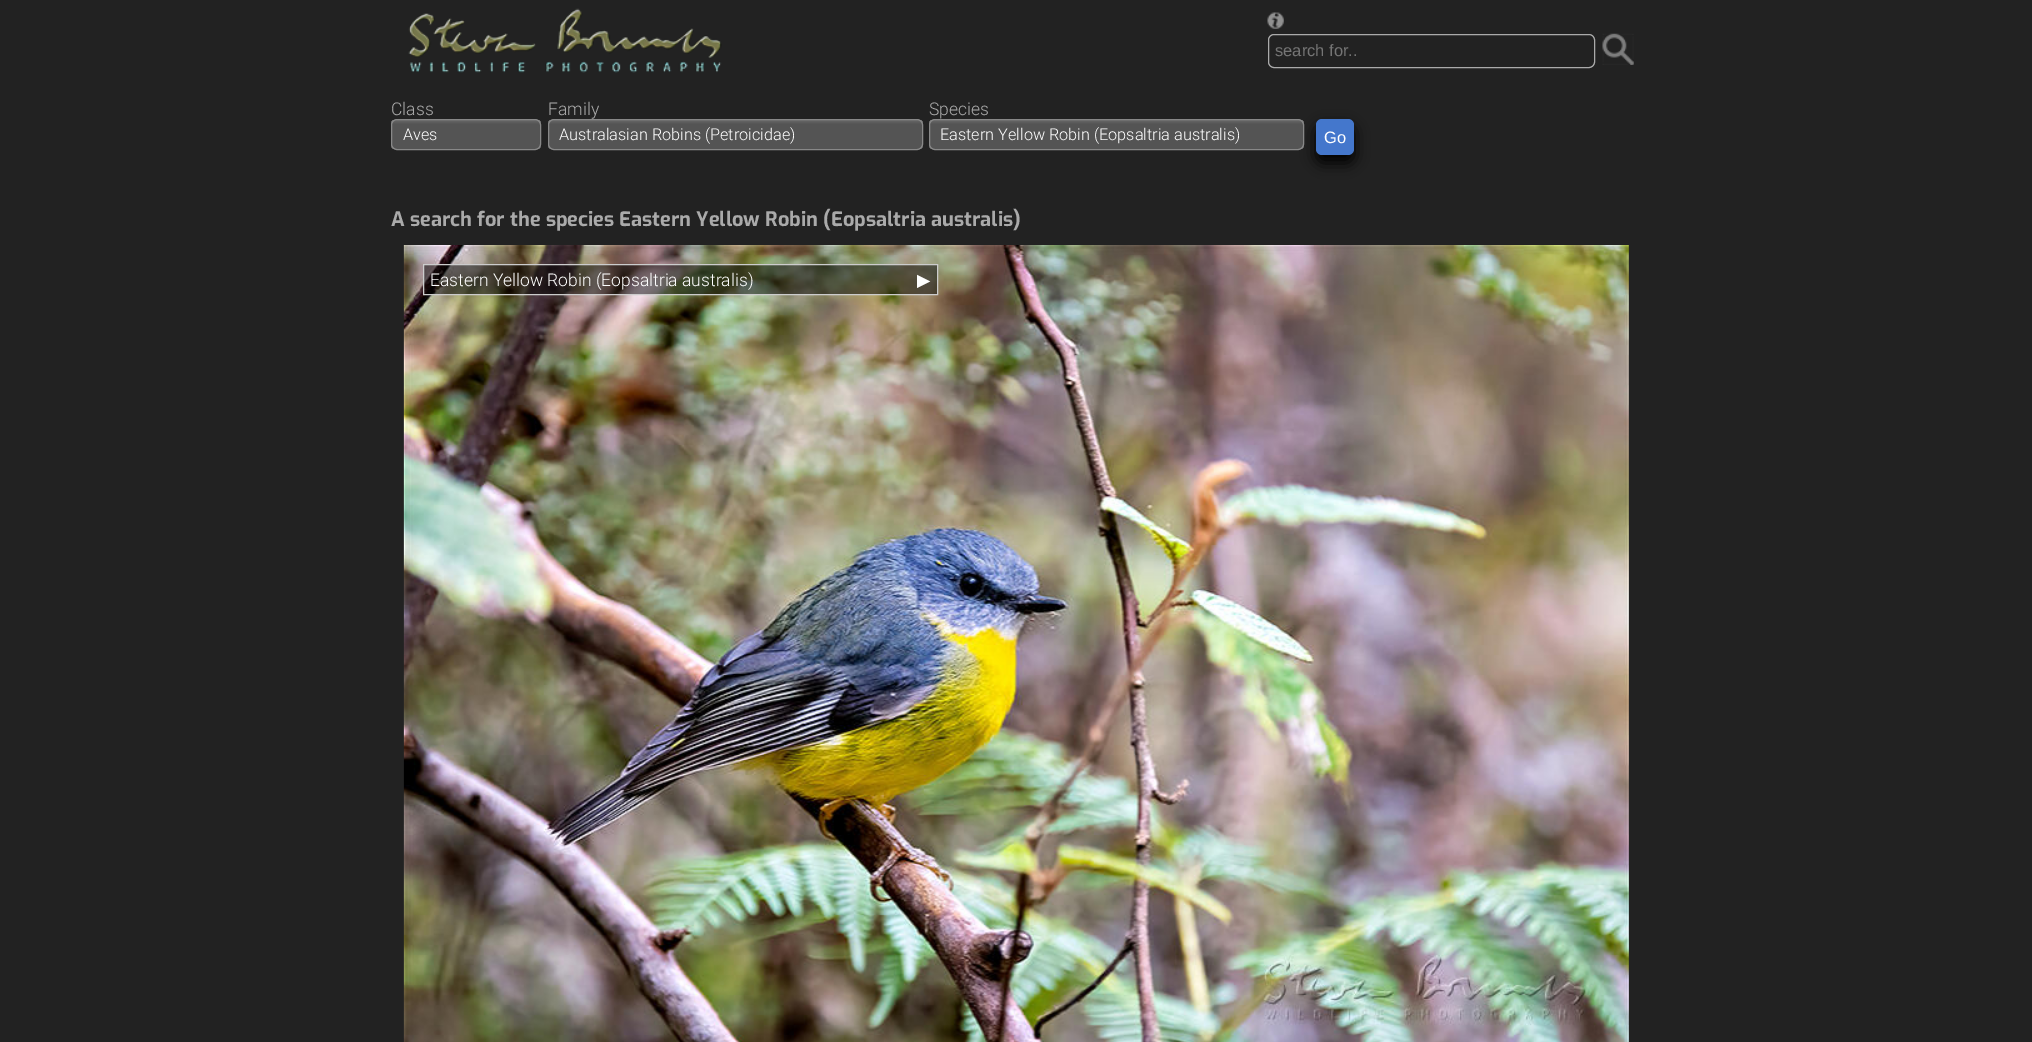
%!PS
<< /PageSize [2032 1042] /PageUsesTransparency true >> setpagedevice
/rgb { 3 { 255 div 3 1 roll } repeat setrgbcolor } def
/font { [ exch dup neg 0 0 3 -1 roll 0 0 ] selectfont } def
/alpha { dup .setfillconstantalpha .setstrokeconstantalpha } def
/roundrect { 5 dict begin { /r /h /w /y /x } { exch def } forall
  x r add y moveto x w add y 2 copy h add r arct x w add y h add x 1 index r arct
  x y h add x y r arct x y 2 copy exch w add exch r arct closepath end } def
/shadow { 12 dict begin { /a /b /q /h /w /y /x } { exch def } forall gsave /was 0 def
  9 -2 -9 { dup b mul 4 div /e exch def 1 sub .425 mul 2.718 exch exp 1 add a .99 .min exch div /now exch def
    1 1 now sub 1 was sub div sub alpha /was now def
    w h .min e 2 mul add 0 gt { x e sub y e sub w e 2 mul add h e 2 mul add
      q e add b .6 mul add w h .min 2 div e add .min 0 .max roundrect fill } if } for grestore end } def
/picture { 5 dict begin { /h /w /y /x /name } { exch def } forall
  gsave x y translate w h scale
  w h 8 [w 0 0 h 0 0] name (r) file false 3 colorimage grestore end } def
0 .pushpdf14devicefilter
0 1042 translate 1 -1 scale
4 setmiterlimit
34 34 34 rgb
0 0 2032 1042 rectfill
(img/1.rgb) 408 8 314 65 picture
(img/2.rgb) 1267 12 17 17 picture
170 170 170 rgb
1268.5 34.5 326 33 5.5 roundrect stroke
(img/3.rgb) 1602 33 32 32 picture
gsave
391 119 150 31 6 roundrect clip newpath
gsave 391 120 moveto 541 120 lineto 541 149 lineto 391 149 lineto closepath clip newpath
<< /ShadingType 2 /ColorSpace /DeviceRGB /Coords [466 120 466 149] /Extend [true true] /Function << /FunctionType 3 /Domain [0 1] /Functions [<< /FunctionType 2 /Domain [0 1] /C0 [0.408 0.408 0.408] /C1 [0.408 0.408 0.408] /N 1 >> << /FunctionType 2 /Domain [0 1] /C0 [0.408 0.408 0.408] /C1 [0.329 0.329 0.329] /N 1 >> << /FunctionType 2 /Domain [0 1] /C0 [0.329 0.329 0.329] /C1 [0.329 0.329 0.329] /N 1 >>] /Bounds [0.01 0.15] /Encode [0 1 0 1 0 1] >> >> shfill grestore
grestore
136 136 136 rgb
391.5 119.5 149 30 5.5 roundrect stroke
gsave
548 119 375 31 6 roundrect clip newpath
gsave 548 120 moveto 923 120 lineto 923 149 lineto 548 149 lineto closepath clip newpath
<< /ShadingType 2 /ColorSpace /DeviceRGB /Coords [735 120 735 149] /Extend [true true] /Function << /FunctionType 3 /Domain [0 1] /Functions [<< /FunctionType 2 /Domain [0 1] /C0 [0.408 0.408 0.408] /C1 [0.408 0.408 0.408] /N 1 >> << /FunctionType 2 /Domain [0 1] /C0 [0.408 0.408 0.408] /C1 [0.329 0.329 0.329] /N 1 >> << /FunctionType 2 /Domain [0 1] /C0 [0.329 0.329 0.329] /C1 [0.329 0.329 0.329] /N 1 >>] /Bounds [0.01 0.15] /Encode [0 1 0 1 0 1] >> >> shfill grestore
grestore
548.5 119.5 374 30 5.5 roundrect stroke
0 0 0 rgb
1316 126 38 37 6 7.5 1 shadow
gsave
929 119 375 31 6 roundrect clip newpath
gsave 929 120 moveto 1304 120 lineto 1304 149 lineto 929 149 lineto closepath clip newpath
<< /ShadingType 2 /ColorSpace /DeviceRGB /Coords [1116 120 1116 149] /Extend [true true] /Function << /FunctionType 3 /Domain [0 1] /Functions [<< /FunctionType 2 /Domain [0 1] /C0 [0.408 0.408 0.408] /C1 [0.408 0.408 0.408] /N 1 >> << /FunctionType 2 /Domain [0 1] /C0 [0.408 0.408 0.408] /C1 [0.329 0.329 0.329] /N 1 >> << /FunctionType 2 /Domain [0 1] /C0 [0.329 0.329 0.329] /C1 [0.329 0.329 0.329] /N 1 >>] /Bounds [0.01 0.15] /Encode [0 1 0 1 0 1] >> >> shfill grestore
grestore
136 136 136 rgb
929.5 119.5 374 30 5.5 roundrect stroke
68 119 204 rgb
1316 119 38 36 6 roundrect fill
(img/4.rgb) 403 245 1226 797 picture
(img/5.rgb) 403 245 1226 797 picture
0.5 alpha
0 0 0 rgb
423.5 264.5 moveto 937.5 264.5 lineto 937.5 294.5 lineto 423.5 294.5 lineto closepath fill
1 alpha
204 204 204 rgb
423.5 264.5 moveto 937.5 264.5 lineto 937.5 294.5 lineto 423.5 294.5 lineto closepath stroke
/LiberationSans-Regular 16.5 font
117 117 117 rgb
1275 56 moveto (search for..) show
/Roboto-Light 17.5 font
170 170 170 rgb
391 115 moveto (Class) show
/Roboto-Light 16.25 font
255 255 255 rgb
403 140 moveto (Aves) show
/Roboto-Light 17.5 font
170 170 170 rgb
548 115 moveto (Family) show
/Roboto-Light 16.25 font
255 255 255 rgb
559 140 moveto (Australasian Robins \(Petroicidae\)) show
/Roboto-Light 17.5 font
170 170 170 rgb
929 115 moveto (Species) show
/Roboto-Light 16.25 font
255 255 255 rgb
940 140 moveto (Eastern Yellow Robin \(Eopsaltria australis\)) show
/LiberationSans-Regular 16.5 font
1324 143 moveto (Go) show
/Exo-Bold 20 font
170 170 170 rgb
391 226 moveto (A search for the species Eastern Yellow Robin \(Eopsaltria australis\)) show
/Roboto-Light 17.5 font
255 255 255 rgb
430 286 moveto (Eastern Yellow Robin \(Eopsaltria australis\)) show
/DejaVuSans-Regular 17.5 font
917 286 moveto (▶) show
.poppdf14devicefilter showpage
